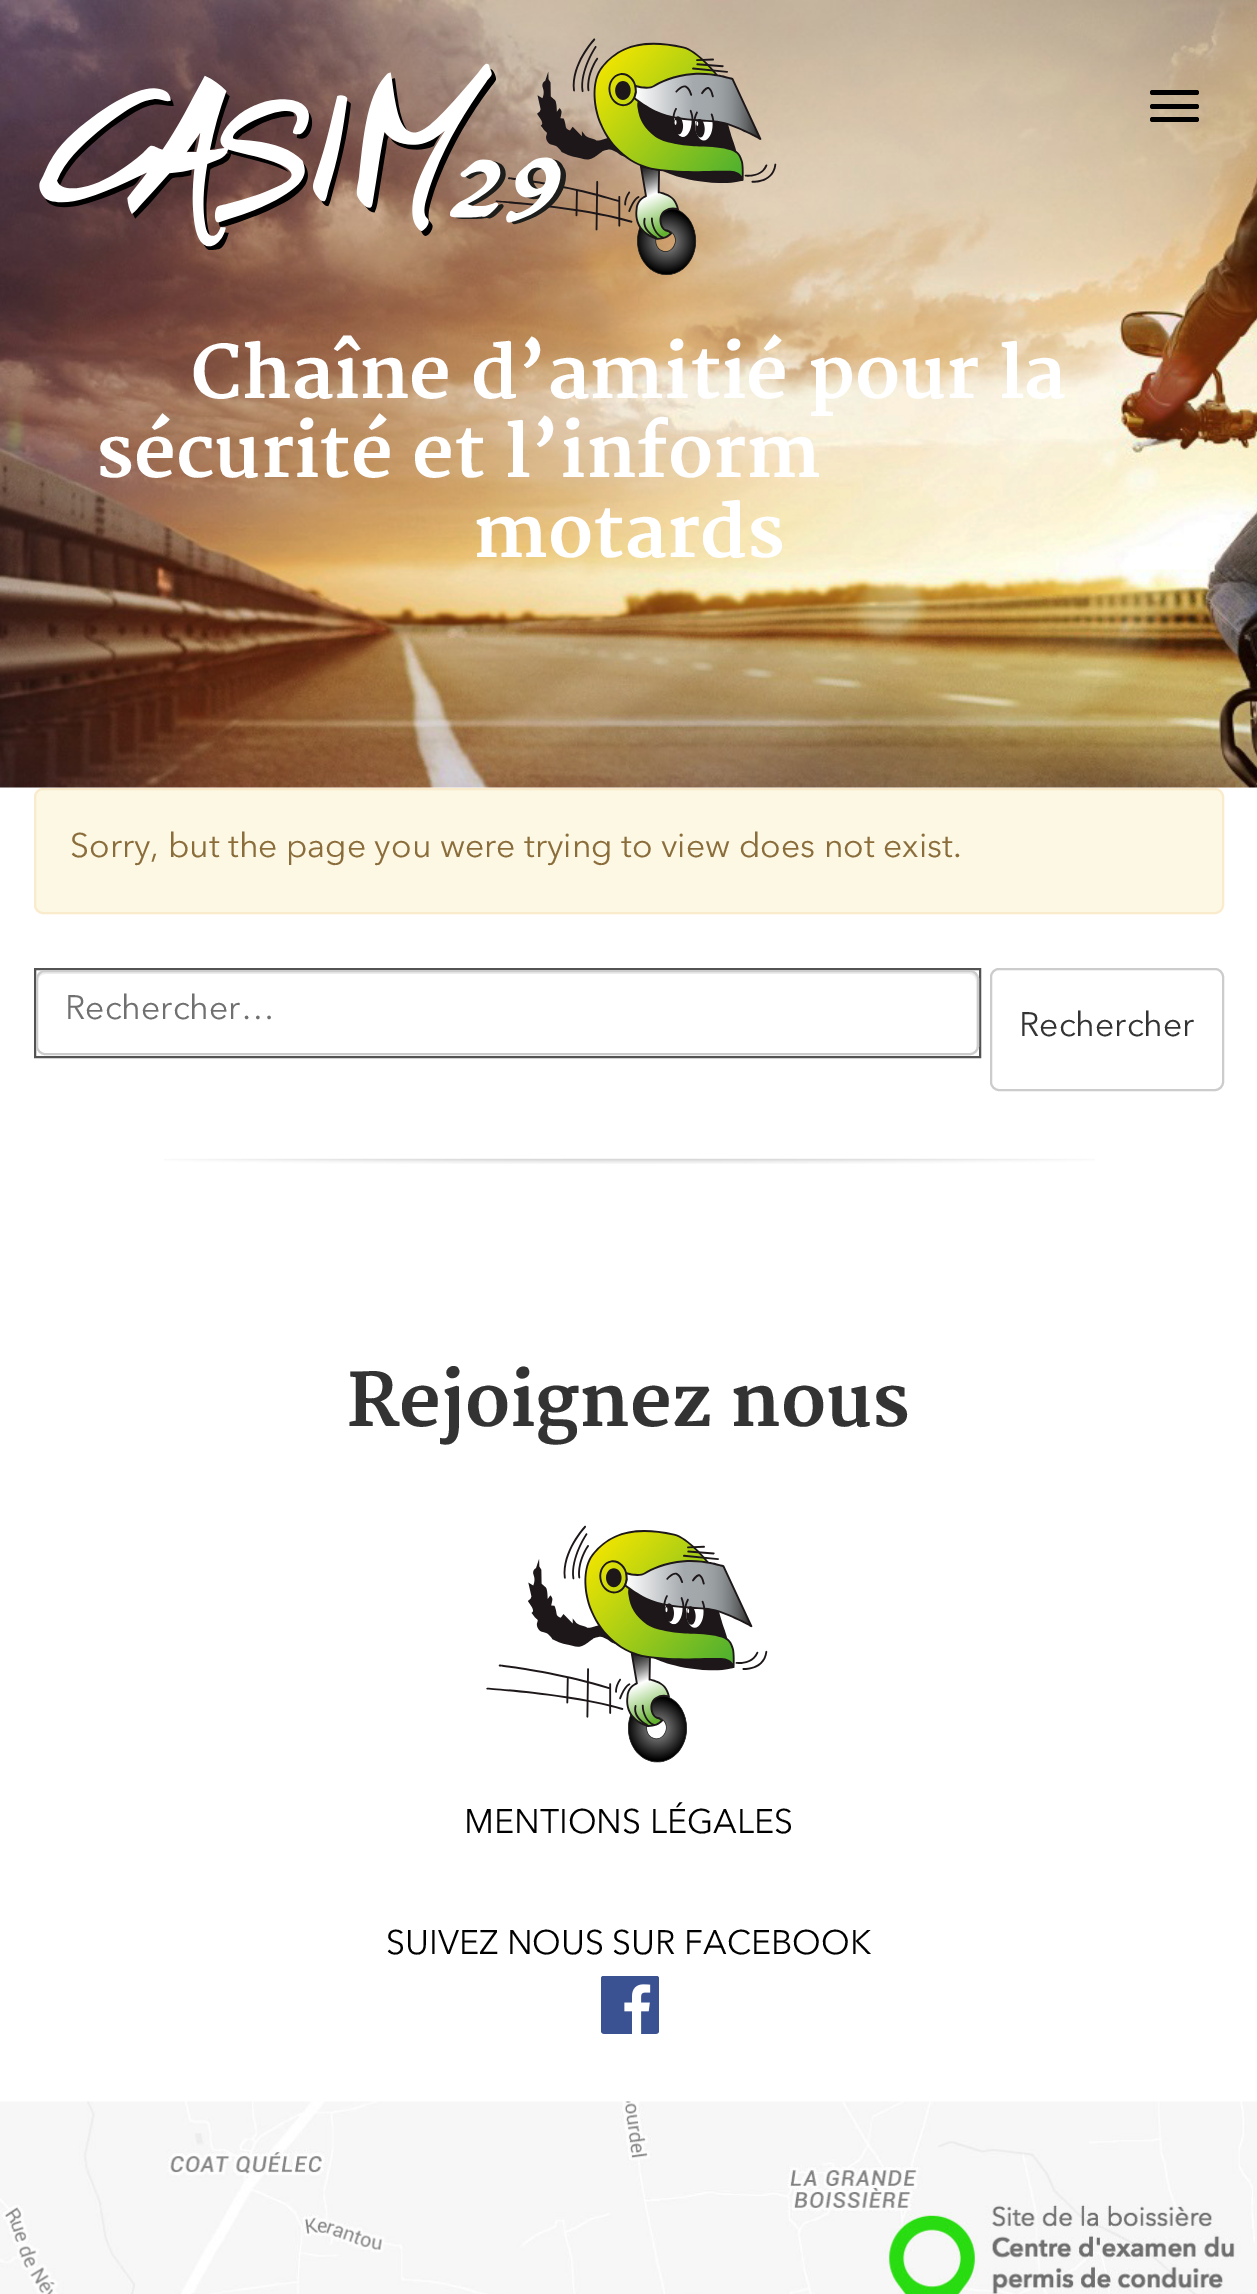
%!PS
<< /PageSize [1257 2294] >> setpagedevice
/rgb { 3 { 255 div 3 1 roll } repeat setrgbcolor } def
/font { [ exch dup neg 0 0 3 -1 roll 0 0 ] selectfont } def
/roundrect { 5 dict begin { /r /h /w /y /x } { exch def } forall
  x r add y moveto x w add y 2 copy h add r arct x w add y h add x 1 index r arct
  x y h add x y r arct x y 2 copy exch w add exch r arct closepath end } def
/picture { 5 dict begin { /h /w /y /x /name } { exch def } forall
  gsave x y translate w h scale
  w h 8 [w 0 0 h 0 0] name (r) file false 3 colorimage grestore end } def
0 2294 translate 1 -1 scale
4 setmiterlimit
255 255 255 rgb
0 0 1257 2294 rectfill
(img/1.rgb) 0 0 1257 788 picture
(img/2.rgb) 39 38 738 237 picture
0 0 0 rgb
1150 90 49 5 2.5 roundrect fill
1150 104 49 5 2.5 roundrect fill
1150 117 49 5 2.5 roundrect fill
252 248 227 rgb
35 789 1188 124 8 roundrect gsave fill grestore
250 235 204 rgb
2 setlinewidth
stroke
83 83 83 rgb
35 969 945 88 rectstroke
236 236 236 rgb
45 974 moveto 970 974 lineto 973 974 976 977 976 981 curveto 976 1050 lineto 977 1049 977 1047 977 1046 curveto 977 979 lineto 977 975 974 972 970 972 curveto 45 972 lineto 41 972 38 975 38 979 curveto 38 981 lineto 38 977 41 974 45 974 curveto closepath fill
204 204 204 rgb
37 971 941 83 8 roundrect stroke
991 969 232 121 8 roundrect stroke
(img/3.rgb) 164 1158 931 6 picture
(img/4.rgb) 486 1525 282 238 picture
(img/5.rgb) 601 1976 58 58 picture
(img/6.rgb) 0 2101 1257 193 picture
/Merriweather-Bold 72 font
255 255 255 rgb
[
  [(Chaîne d’amitié pour la) 191 398]
  [(sécurité et l’inform) 96 477]
  [(motards) 473 557]
] { aload pop moveto show } forall
/AvenirNext-Regular 33.75 font
138 109 59 rgb
70 857 moveto (Sorry, but the page you were trying to view does not exist.) show
112 112 112 rgb
65 1019 moveto (Rechercher…) show
51 51 51 rgb
1019 1036 moveto (Rechercher) show
/Merriweather-Bold 72 font
347 1426 moveto (Rejoignez nous) show
/AvenirNext-Regular 33.75 font
0 0 0 rgb
464 1833 moveto (MENTIONS LÉGALES) show
386 1954 moveto (SUIVEZ NOUS SUR FACEBOOK) show
showpage
